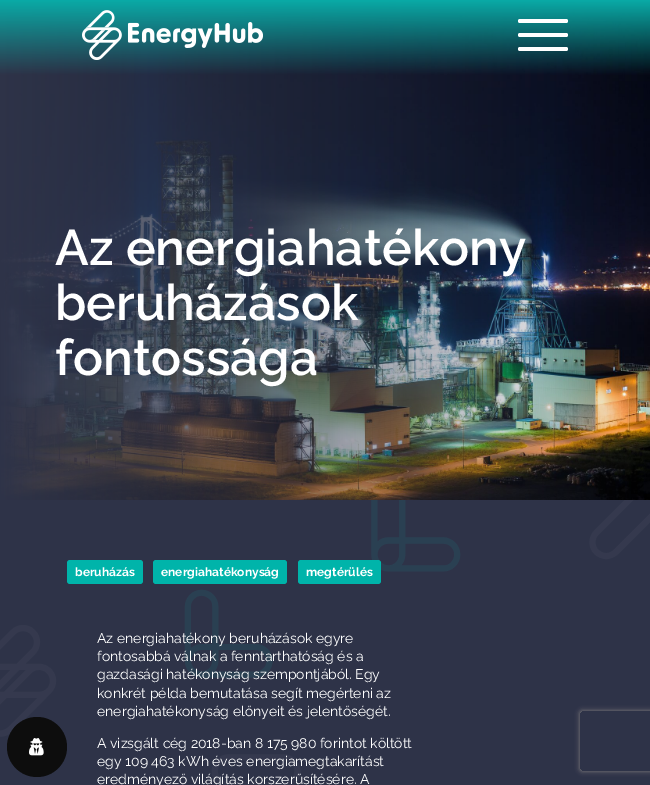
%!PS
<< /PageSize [650 785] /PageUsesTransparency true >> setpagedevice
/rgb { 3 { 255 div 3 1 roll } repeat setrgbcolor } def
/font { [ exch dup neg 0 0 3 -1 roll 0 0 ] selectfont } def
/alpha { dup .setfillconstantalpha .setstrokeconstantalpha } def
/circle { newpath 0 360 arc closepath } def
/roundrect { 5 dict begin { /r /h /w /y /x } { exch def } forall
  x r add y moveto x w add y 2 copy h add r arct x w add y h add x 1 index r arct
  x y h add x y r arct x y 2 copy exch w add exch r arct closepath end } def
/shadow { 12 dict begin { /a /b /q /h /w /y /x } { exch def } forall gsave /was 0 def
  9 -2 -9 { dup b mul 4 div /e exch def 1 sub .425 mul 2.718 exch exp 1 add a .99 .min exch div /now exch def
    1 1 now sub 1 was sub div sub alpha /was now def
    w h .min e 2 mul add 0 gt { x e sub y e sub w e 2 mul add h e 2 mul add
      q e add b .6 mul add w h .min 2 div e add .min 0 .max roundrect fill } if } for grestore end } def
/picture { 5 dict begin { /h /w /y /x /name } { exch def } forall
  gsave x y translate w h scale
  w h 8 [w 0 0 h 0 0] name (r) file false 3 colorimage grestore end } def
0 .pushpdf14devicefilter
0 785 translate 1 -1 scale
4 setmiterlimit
46 51 72 rgb
0 0 650 785 rectfill
(img/1.rgb) 0 500 650 285 picture
(img/3.rgb) 0 0 650 500 picture
(img/2.rgb) 82 10 181 50 picture
255 255 255 rgb
518 47 50 4 2 roundrect fill
518 33 50 4 2 roundrect fill
518 19 50 4 2 roundrect fill
13 13 13 rgb
37 747 30 circle fill
(img/4.rgb) 29 738 15 18 picture
0 180 170 rgb
67 560 76 24 3 roundrect fill
153 560 134 24 3 roundrect fill
298 560 83 24 3 roundrect fill
gsave
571 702 moveto 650 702 lineto 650 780 lineto 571 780 lineto closepath 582 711 moveto 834 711 lineto 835 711 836 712 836 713 curveto 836 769 lineto 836 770 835 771 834 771 curveto 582 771 lineto 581 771 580 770 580 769 curveto 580 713 lineto 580 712 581 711 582 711 curveto closepath eoclip newpath
128 128 128 rgb
580 711 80 60 2 2.5 1 shadow
grestore
/Raleway-SemiBold 50 font
255 255 255 rgb
[
  [(Az energiahatékony) 55 265]
  [(beruházások) 55 320]
  [(fontossága) 55 375]
] { aload pop moveto show } forall
/Raleway-Bold 12 font
[
  [(beruházás) 75 576]
  [(energiahatékonyság) 161 576]
  [(megtérülés) 306 576]
] { aload pop moveto show } forall
/Raleway-Regular 14 font
[
  [(Az energiahatékony beruházások egyre) 97 643]
  [(fontosabbá válnak a fenntarthatóság és a) 97 661]
  [(gazdasági hatékonyság szempontjából. Egy) 97 679]
  [(konkrét példa bemutatása segít megérteni az) 97 698]
  [(energiahatékonyság előnyeit és jelentőségét.) 97 716]
  [(A vizsgált cég 2018-ban 8 175 980 forintot költött) 97 748]
  [(egy 109 463 kWh éves energiamegtakarítást) 97 766]
  [(eredményező világítás korszerűsítésére. A) 97 784]
] { aload pop moveto show } forall
.poppdf14devicefilter showpage
